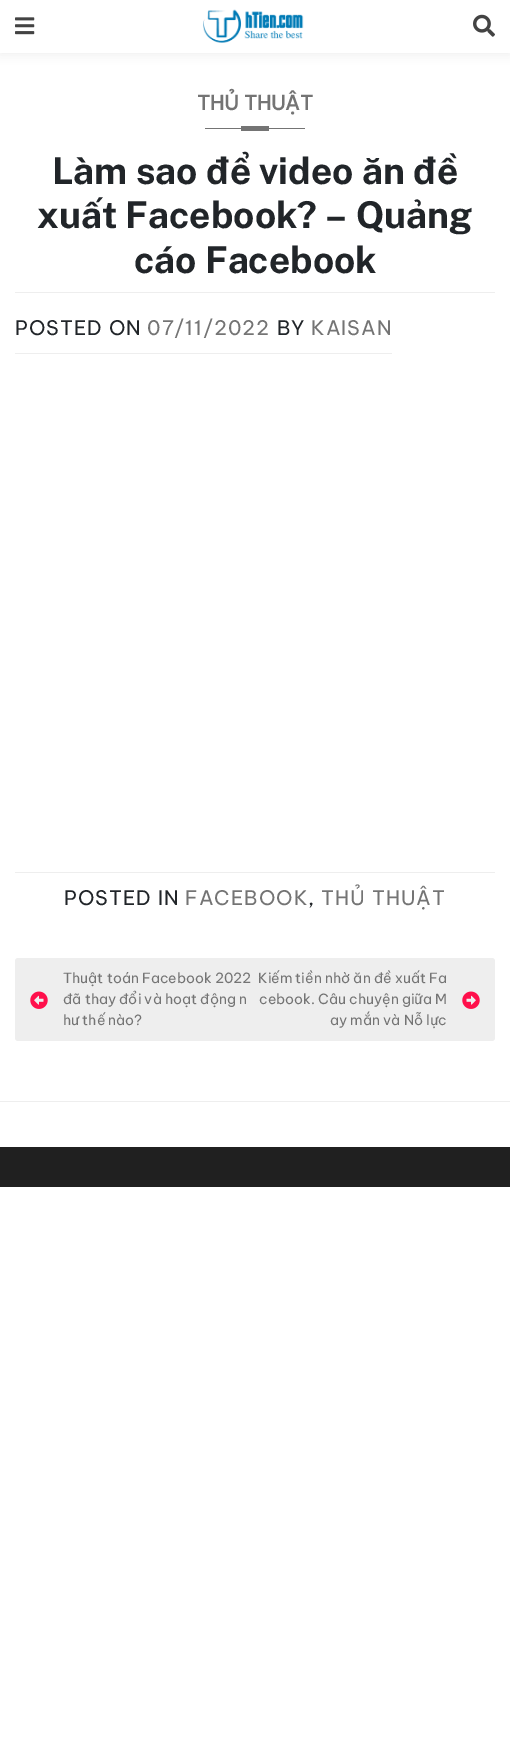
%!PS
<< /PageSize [510 1742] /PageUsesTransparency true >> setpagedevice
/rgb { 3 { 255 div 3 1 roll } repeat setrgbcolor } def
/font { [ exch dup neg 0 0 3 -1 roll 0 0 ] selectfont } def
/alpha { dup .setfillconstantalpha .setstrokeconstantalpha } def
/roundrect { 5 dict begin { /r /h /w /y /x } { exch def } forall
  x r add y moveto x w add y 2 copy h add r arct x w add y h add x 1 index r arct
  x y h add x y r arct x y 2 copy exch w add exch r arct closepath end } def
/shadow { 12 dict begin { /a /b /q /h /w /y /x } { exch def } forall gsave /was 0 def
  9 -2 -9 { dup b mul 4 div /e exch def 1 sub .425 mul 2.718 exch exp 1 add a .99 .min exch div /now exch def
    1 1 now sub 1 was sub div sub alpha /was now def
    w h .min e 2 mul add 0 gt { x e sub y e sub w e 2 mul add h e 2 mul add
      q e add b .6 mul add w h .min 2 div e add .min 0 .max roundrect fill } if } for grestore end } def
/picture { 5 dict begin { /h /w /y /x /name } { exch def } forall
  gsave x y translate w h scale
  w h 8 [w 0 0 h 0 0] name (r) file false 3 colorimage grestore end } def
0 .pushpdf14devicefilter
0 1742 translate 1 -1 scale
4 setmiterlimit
255 255 255 rgb
0 0 510 1742 rectfill
gsave
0 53 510 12 rectclip
238 238 238 rgb
0 2 510 53 0 5 1 shadow
grestore
(img/1.rgb) 15 17 20 18 picture
(img/2.rgb) 203 9 101 34 picture
(img/3.rgb) 473 14 22 23 picture
[
  [0 1101 510 1 238 238 238]
  [241 126 28 5 116 116 116]
  [205 128 100 1 116 116 116]
  [15 292 480 1 238 238 238]
  [15 353 377 1 238 238 238]
  [15 872 480 1 238 238 238]
] { aload pop rgb rectfill } forall
15 958 480 83 3 roundrect fill
(img/4.rgb) 30 991 18 18 picture
(img/5.rgb) 462 991 18 18 picture
32 32 32 rgb
0 1147 510 40 rectfill
/BeVietnamPro-Bold 20 font
116 116 116 rgb
197 110 moveto (THỦ THUẬT) show
/PublicSans-Bold 37 font
33 37 41 rgb
[
  [(Làm sao để video ăn đề) 52 184]
  [(xuất Facebook? – Quảng) 37 228]
  [(cáo Facebook) 134 273]
] { aload pop moveto show } forall
/BeVietnamPro-Regular 20 font
15 335 moveto 1 0 (POSTED ON) ashow
116 116 116 rgb
147 335 moveto 1 0 (07/11/2022) ashow
33 37 41 rgb
277 335 moveto 1 0 (BY) ashow
116 116 116 rgb
311 335 moveto 1 0 (KAISAN) ashow
33 37 41 rgb
64 905 moveto 1 0 (POSTED IN) ashow
116 116 116 rgb
185 905 moveto 1 0 (FACEBOOK) ashow
33 37 41 rgb
308 905 moveto 1 0 (,) ashow
116 116 116 rgb
321 905 moveto 1 0 (THỦ THUẬT) ashow
/BeVietnamPro-Regular 14 font
[
  [(Thuật toán Facebook 2022) 63 983]
  [(đã thay đổi và hoạt động n) 63 1004]
  [(hư thế nào?) 63 1025]
  [(Kiếm tiền nhờ ăn đề xuất Fa) 258 983]
  [(cebook. Câu chuyện giữa M) 259 1004]
  [(ay mắn và Nỗ lực) 330 1025]
] { aload pop moveto show } forall
.poppdf14devicefilter showpage
